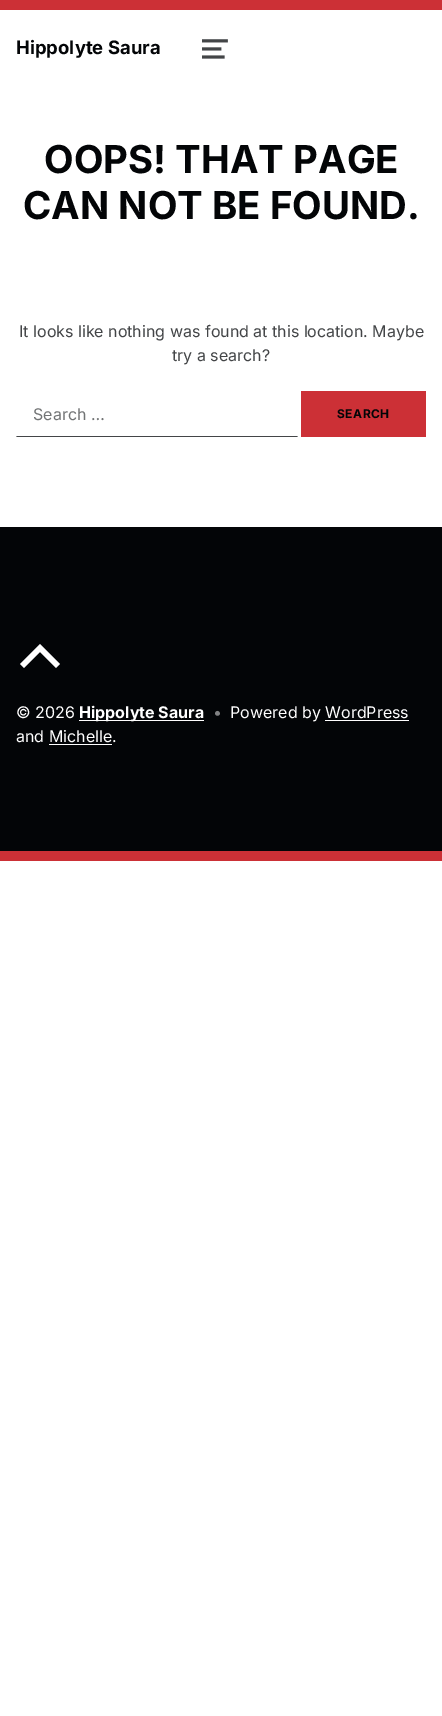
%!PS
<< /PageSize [442 1716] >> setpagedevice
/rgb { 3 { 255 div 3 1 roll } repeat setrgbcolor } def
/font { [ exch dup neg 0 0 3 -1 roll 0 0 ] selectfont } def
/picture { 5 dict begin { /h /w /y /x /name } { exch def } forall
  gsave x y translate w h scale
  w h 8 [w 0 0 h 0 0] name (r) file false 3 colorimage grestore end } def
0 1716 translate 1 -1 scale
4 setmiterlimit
255 255 255 rgb
0 0 442 1716 rectfill
204 48 54 rgb
0 0 442 10 rectfill
0 851 442 10 rectfill
(img/1.rgb) 202 39 26 20 picture
67 69 71 rgb
298 437 moveto 16 437 lineto 17 436 lineto 297 436 lineto closepath fill
204 48 54 rgb
301 391 125 46 rectfill
3 5 7 rgb
0 527 442 324 rectfill
255 255 255 rgb
40 644 moveto 20 664 lineto 24 668 lineto 40 652 lineto 56 668 lineto 60 664 lineto closepath fill
[
  [79 720 125 1 255 255 255]
  [325 720 84 1 255 255 255]
  [49 744 63 1 255 255 255]
] { aload pop rgb rectfill } forall
/Inter-Bold 18.5 font
3 5 7 rgb
16 54 moveto (Hippolyte Saura) show
/Inter-Bold 38.4 font
44 173 moveto (OOPS! THAT PAGE) show
23 219 moveto (CAN NOT BE FOUND.) show
/Inter-Regular 16 font
67 69 71 rgb
19 337 moveto (It looks like nothing was found at this location. Maybe) show
172 361 moveto (try a search?) show
114 116 117 rgb
33 420 moveto (Search …) show
/Inter-Bold 12 font
3 5 7 rgb
337 418 moveto 0.5 0 (SEARCH) ashow
/Inter-Regular 16 font
255 255 255 rgb
16 718 moveto (© 2026) show
/Inter-Bold 16 font
79 718 moveto (Hippolyte Saura) show
/Inter-Regular 16 font
129 130 131 rgb
213 718 moveto (•) show
255 255 255 rgb
230 718 moveto (Powered by WordPress) show
16 742 moveto (and Michelle.) show
showpage
